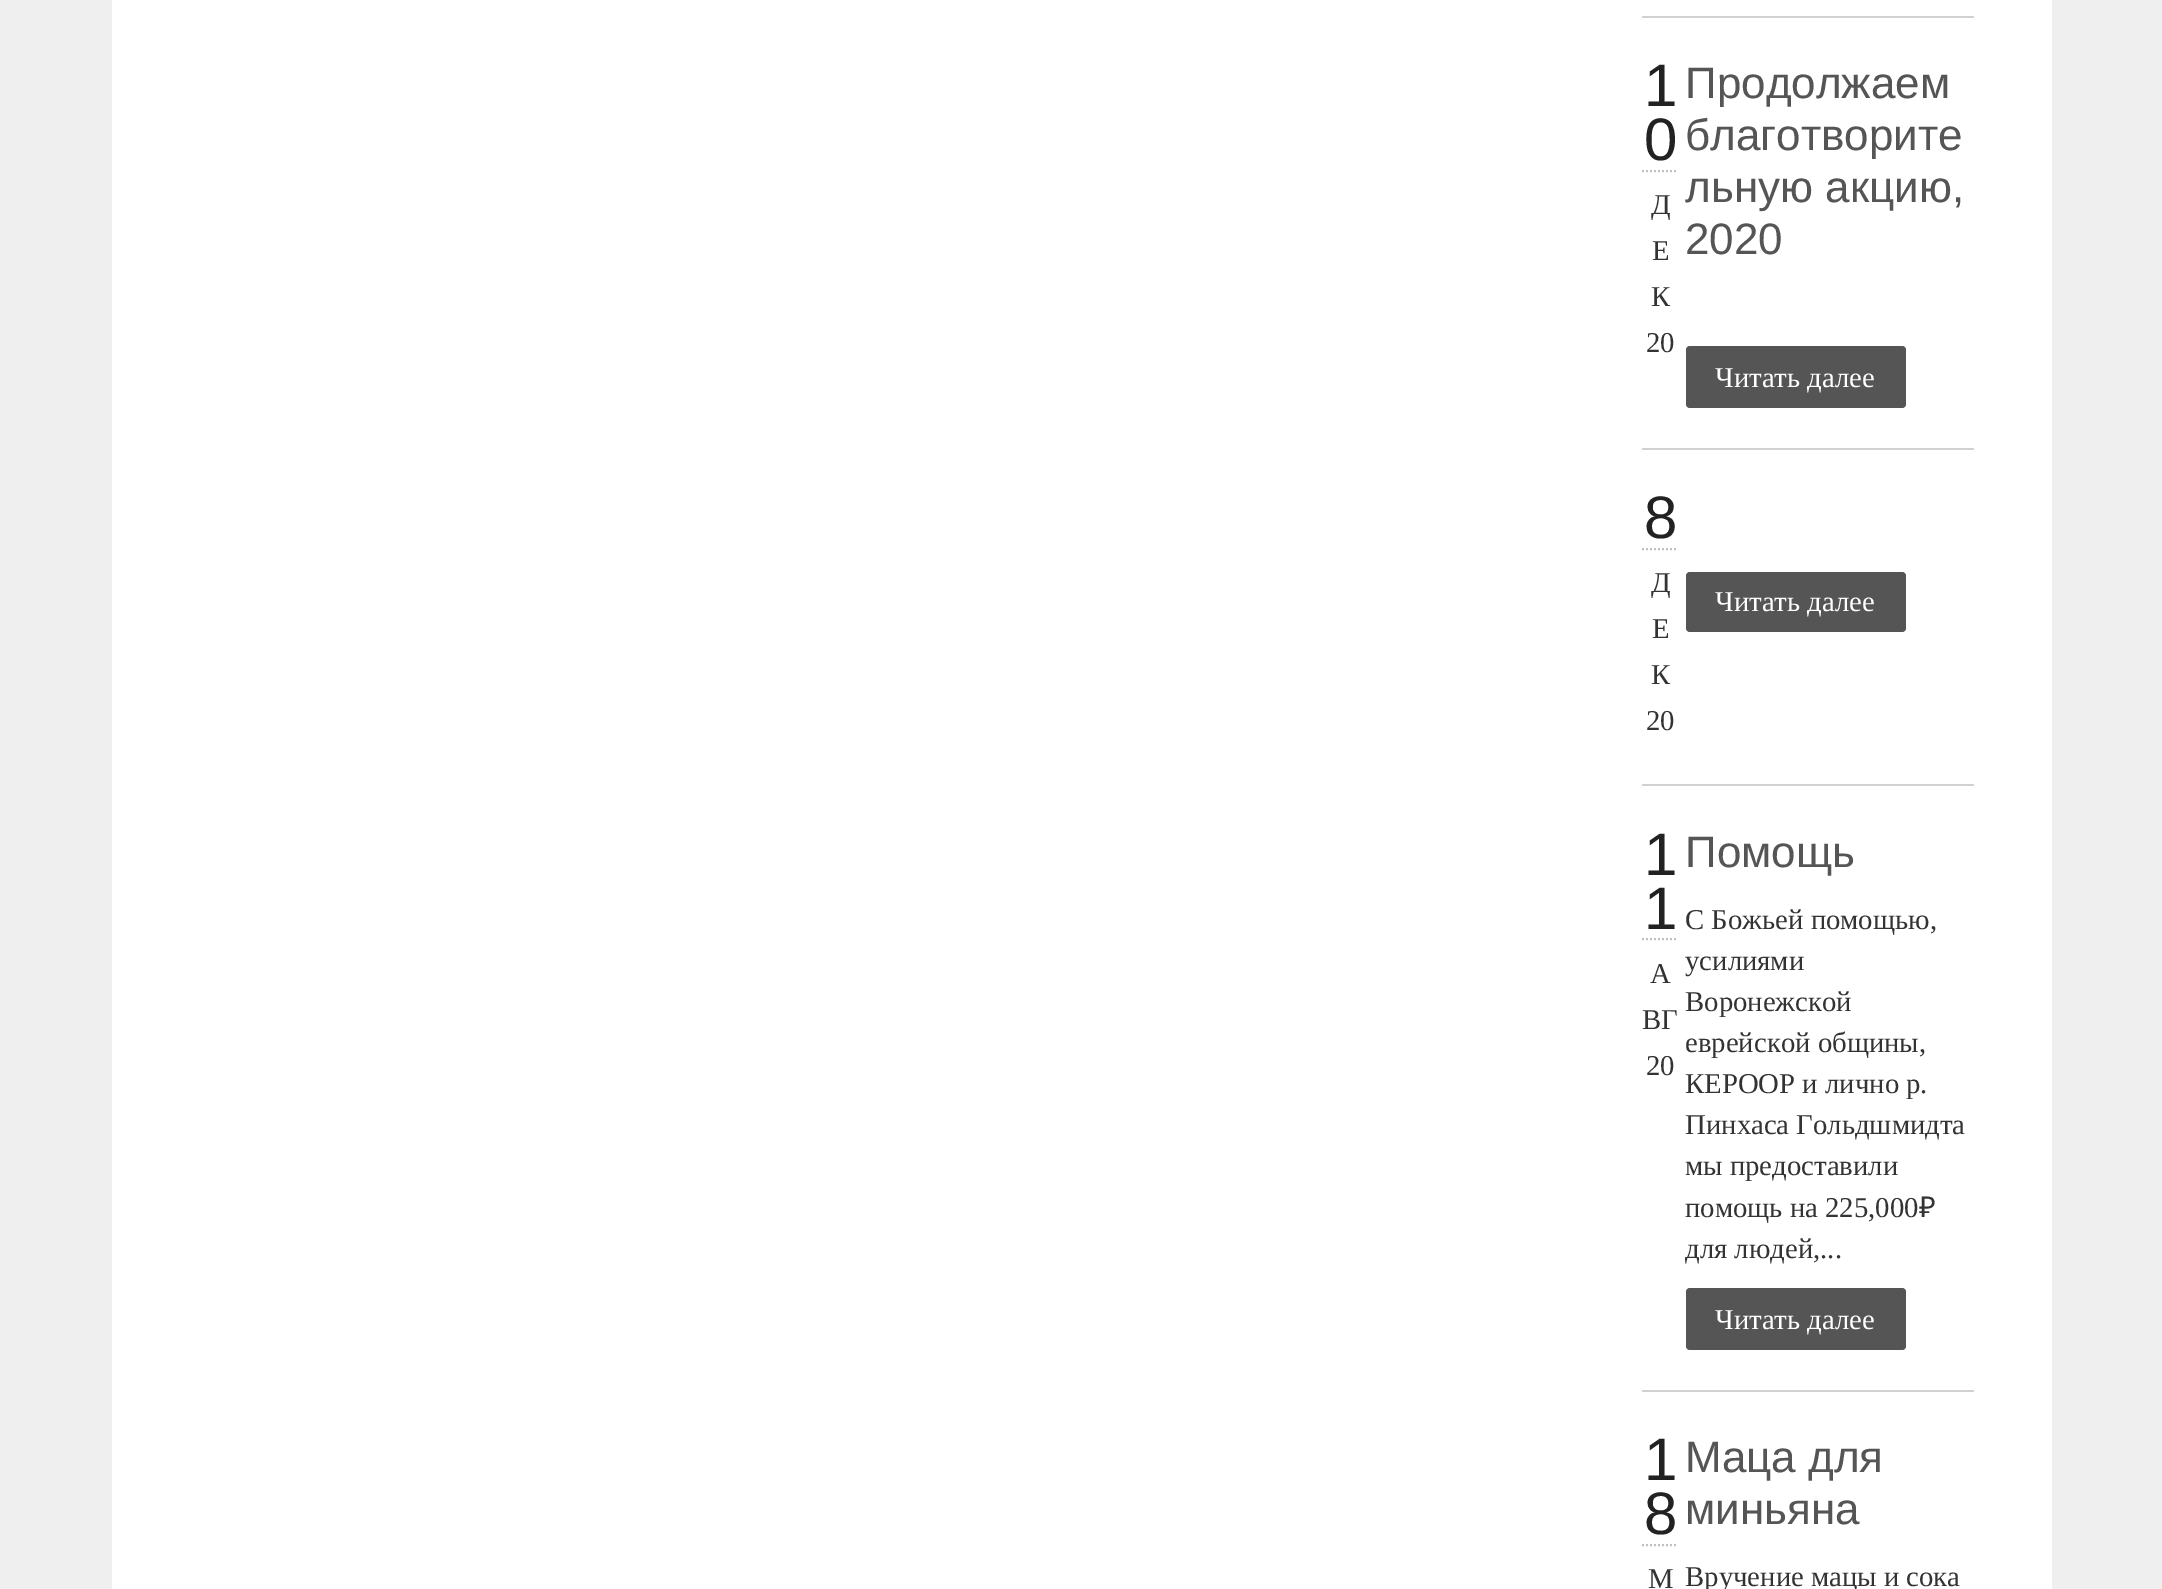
%!PS
<< /PageSize [2162 1589] >> setpagedevice
/rgb { 3 { 255 div 3 1 roll } repeat setrgbcolor } def
/font { [ exch dup neg 0 0 3 -1 roll 0 0 ] selectfont } def
/roundrect { 5 dict begin { /r /h /w /y /x } { exch def } forall
  x r add y moveto x w add y 2 copy h add r arct x w add y h add x 1 index r arct
  x y h add x y r arct x y 2 copy exch w add exch r arct closepath end } def
0 1589 translate 1 -1 scale
4 setmiterlimit
239 239 239 rgb
0 0 2162 1589 rectfill
[
  [112 0 1940 1589 255 255 255]
  [1642 16 332 2 209 209 209]
  [1642 448 332 2 209 209 209]
] { aload pop rgb rectfill } forall
192 192 192 rgb
2 setlinewidth
[2 2] 0 setdash
1642 171 moveto 1678 171 lineto stroke
85 85 85 rgb
1686 346 220 62 4 roundrect fill
209 209 209 rgb
1642 784 332 2 rectfill
192 192 192 rgb
1642 549 moveto 1678 549 lineto stroke
85 85 85 rgb
1686 572 220 60 4 roundrect fill
209 209 209 rgb
1642 1390 332 2 rectfill
192 192 192 rgb
1642 939 moveto 1678 939 lineto stroke
85 85 85 rgb
1686 1288 220 62 4 roundrect fill
192 192 192 rgb
1642 1545 moveto 1678 1545 lineto stroke
/LiberationSans-Regular 60 font
34 34 34 rgb
1644 106 moveto (1) show
1644 160 moveto (0) show
/LiberationSerif-Regular 28.75 font
51 51 51 rgb
[
  [(Д) 1651 214]
  [(Е) 1652 260]
  [(К) 1651 306]
  [(20) 1646 352]
] { aload pop moveto show } forall
/LiberationSans-Regular 44 font
85 85 85 rgb
[
  [(Продолжаем) 1685 98]
  [(благотворите) 1685 150]
  [(льную акцию,) 1685 202]
  [(2020) 1685 254]
] { aload pop moveto show } forall
/LiberationSerif-Regular 28.75 font
255 255 255 rgb
1715 387 moveto (Читать далее) show
/LiberationSans-Regular 60 font
34 34 34 rgb
1644 538 moveto (8) show
/LiberationSerif-Regular 28.75 font
51 51 51 rgb
[
  [(Д) 1651 592]
  [(Е) 1652 638]
  [(К) 1651 684]
  [(20) 1646 730]
] { aload pop moveto show } forall
255 255 255 rgb
1715 611 moveto (Читать далее) show
/LiberationSans-Regular 60 font
34 34 34 rgb
1644 875 moveto (1) show
1644 929 moveto (1) show
/LiberationSerif-Regular 28.75 font
51 51 51 rgb
[
  [(А) 1650 983]
  [(ВГ) 1642 1029]
  [(20) 1646 1075]
] { aload pop moveto show } forall
/LiberationSans-Regular 44 font
85 85 85 rgb
1685 867 moveto (Помощь) show
/LiberationSerif-Regular 28.75 font
51 51 51 rgb
[
  [(С Божьей помощью,) 1685 929]
  [(усилиями) 1685 970]
  [(Воронежской) 1685 1011]
  [(еврейской общины,) 1685 1052]
  [(КЕРООР и лично р.) 1685 1093]
  [(Пинхаса Гольдшмидта) 1685 1134]
  [(мы предоставили) 1685 1175]
  [(помощь на 225,000) 1685 1217]
] { aload pop moveto show } forall
/NotoSans-Regular 28.75 font
1919 1217 moveto (₽) show
/LiberationSerif-Regular 28.75 font
1685 1258 moveto (для людей,...) show
255 255 255 rgb
1715 1329 moveto (Читать далее) show
/LiberationSans-Regular 60 font
34 34 34 rgb
1644 1480 moveto (1) show
1644 1534 moveto (8) show
/LiberationSerif-Regular 28.75 font
51 51 51 rgb
1648 1588 moveto (М) show
/LiberationSans-Regular 44 font
85 85 85 rgb
1685 1472 moveto (Маца для) show
1685 1524 moveto (миньяна) show
/LiberationSerif-Regular 28.75 font
51 51 51 rgb
1685 1586 moveto (Вручение мацы и сока) show
showpage
